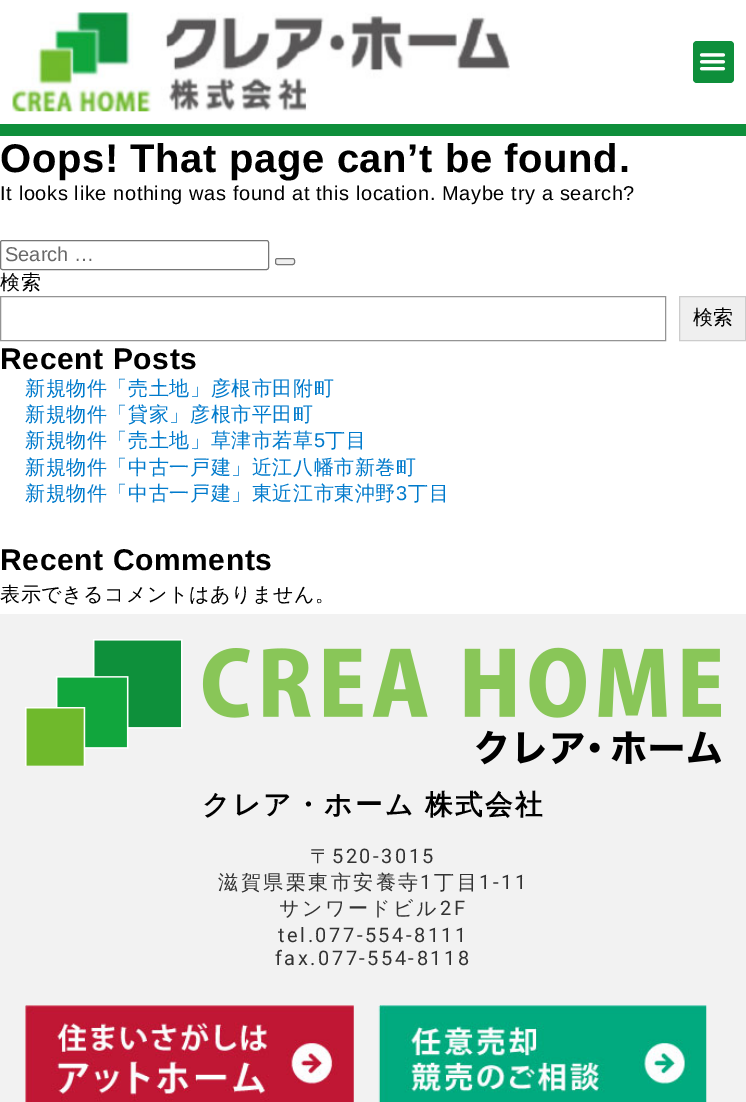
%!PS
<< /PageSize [746 1102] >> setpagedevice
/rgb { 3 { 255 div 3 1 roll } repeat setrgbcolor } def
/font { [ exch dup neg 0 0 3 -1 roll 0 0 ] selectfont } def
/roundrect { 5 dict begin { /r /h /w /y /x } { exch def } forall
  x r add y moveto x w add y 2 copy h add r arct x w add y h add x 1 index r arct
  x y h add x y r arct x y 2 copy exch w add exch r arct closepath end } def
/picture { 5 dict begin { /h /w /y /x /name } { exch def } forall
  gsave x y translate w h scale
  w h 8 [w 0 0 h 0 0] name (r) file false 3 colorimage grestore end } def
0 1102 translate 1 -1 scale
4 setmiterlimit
255 255 255 rgb
0 0 746 1102 rectfill
14 143 59 rgb
0 124 746 12 rectfill
(img/1.rgb) 12 12 498 100 picture
693 41 41 42 4 roundrect fill
(img/2.rgb) 699 53 27 18 picture
118 118 118 rgb
0.5 240.5 268 29 2 roundrect stroke
239 239 239 rgb
275.5 258.5 19 6 2 roundrect gsave fill grestore
118 118 118 rgb
stroke
148 148 148 rgb
0.5 296.5 665 44 rectstroke
239 239 239 rgb
679.5 296.5 moveto 745.5 296.5 lineto 745.5 340.5 lineto 679.5 340.5 lineto closepath gsave fill grestore
204 204 204 rgb
stroke
242 242 242 rgb
0 614 746 488 rectfill
(img/3.rgb) 25 639 696 127 picture
(img/4.rgb) 25 1005 329 97 picture
(img/5.rgb) 378 1005 329 97 picture
/LiberationSans-Bold 40 font
0 0 0 rgb
0 172 moveto 0.62 0 (Oops! That page can’t be found.) ashow
/LiberationSans-Regular 20 font
0 200 moveto 0.62 0 (It looks like nothing was found at this location. Maybe try a search?) ashow
104 104 104 rgb
5 261 moveto (Search …) show
/WenQuanYiZenHei-Medium 20 font
0 0 0 rgb
0 289 moveto 0.62 0 (検索) ashow
693 324 moveto (検索) show
/LiberationSans-Bold 30 font
0 369 moveto 0.62 0 (Recent Posts) ashow
/WenQuanYiZenHei-Medium 20 font
0 122 204 rgb
25 395 moveto 0.62 0 (新規物件「売土地」彦根市田附町) ashow
25 421 moveto 0.62 0 (新規物件「貸家」彦根市平田町) ashow
25 447 moveto 0.62 0 (新規物件「売土地」草津市若草) ashow
/LiberationSans-Regular 20 font
314 447 moveto 0.62 0 (5) ashow
/WenQuanYiZenHei-Medium 20 font
325 447 moveto 0.62 0 (丁目) ashow
25 474 moveto 0.62 0 (新規物件「中古一戸建」近江八幡市新巻町) ashow
25 500 moveto 0.62 0 (新規物件「中古一戸建」東近江市東沖野) ashow
/LiberationSans-Regular 20 font
396 500 moveto 0.62 0 (3) ashow
/WenQuanYiZenHei-Medium 20 font
408 500 moveto 0.62 0 (丁目) ashow
/LiberationSans-Bold 30 font
0 0 0 rgb
0 570 moveto 0.62 0 (Recent Comments) ashow
/WenQuanYiZenHei-Medium 20 font
0 601 moveto 0.62 0 (表示できるコメントはありません。) ashow
/WenQuanYiZenHei-Bold 27.5 font
202 814 moveto -1 0 32 2.5 0 (クレア・ホーム 株式会社) awidthshow
/WenQuanYiZenHei-Medium 20 font
51 51 51 rgb
310 863 moveto 2.5 0 (〒) ashow
/Roboto-Regular 20 font
332 863 moveto 2.5 0 (520-3015) ashow
/WenQuanYiZenHei-Medium 20 font
218 889 moveto 2.5 0 (滋賀県栗東市安養寺) ashow
/Roboto-Regular 20 font
420 889 moveto 2.5 0 (1) ashow
/WenQuanYiZenHei-Medium 20 font
434 889 moveto 2.5 0 (丁目) ashow
/Roboto-Regular 20 font
479 889 moveto 2.5 0 (1-11) ashow
/WenQuanYiZenHei-Medium 20 font
279 915 moveto 2.5 0 (サンワードビル) ashow
/Roboto-Regular 20 font
440 915 moveto 2.5 0 (2F) ashow
278 942 moveto 2.5 0 (tel.077-554-8111) ashow
275 965 moveto 2.5 0 (fax.077-554-8118) ashow
showpage
